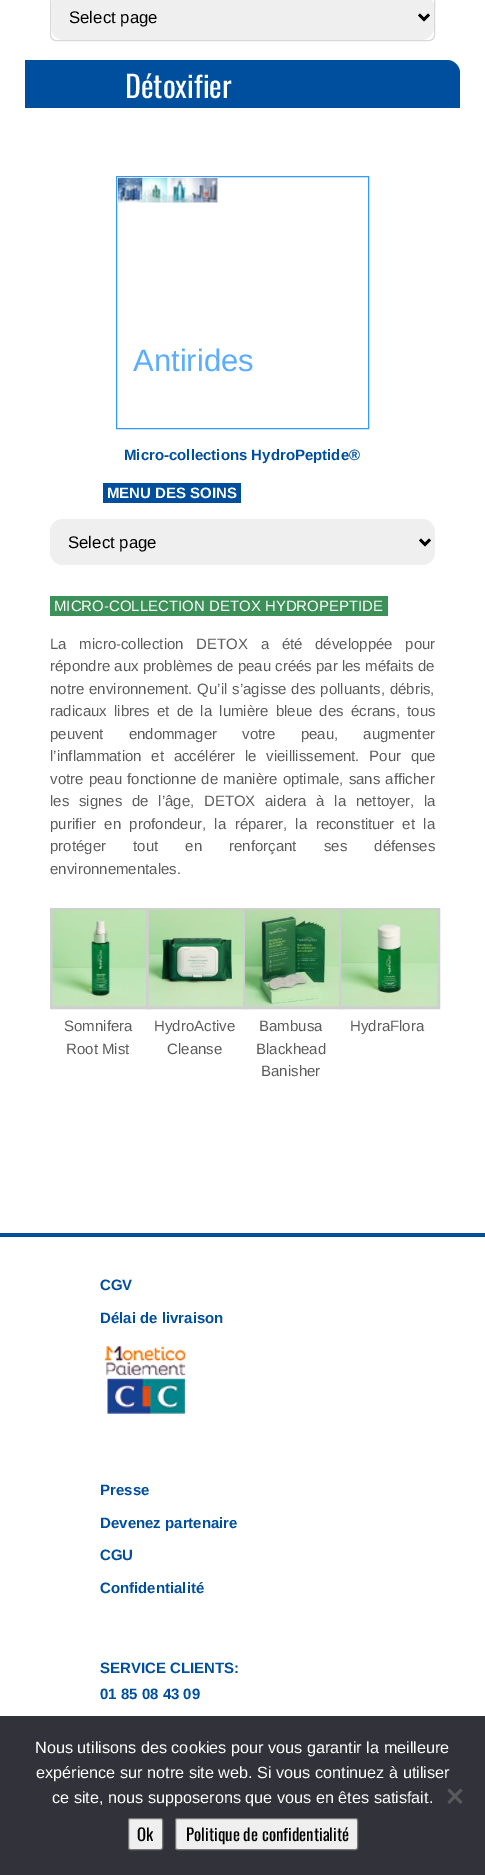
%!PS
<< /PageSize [485 1875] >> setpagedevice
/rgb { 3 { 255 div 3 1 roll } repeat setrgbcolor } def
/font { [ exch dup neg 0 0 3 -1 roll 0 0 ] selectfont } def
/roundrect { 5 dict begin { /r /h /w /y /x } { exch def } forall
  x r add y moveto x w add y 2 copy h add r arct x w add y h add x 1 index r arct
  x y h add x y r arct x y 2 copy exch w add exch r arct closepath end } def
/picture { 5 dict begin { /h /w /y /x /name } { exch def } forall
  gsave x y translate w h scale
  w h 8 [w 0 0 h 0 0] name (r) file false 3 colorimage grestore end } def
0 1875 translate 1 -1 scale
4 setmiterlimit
255 255 255 rgb
0 0 485 1875 rectfill
217 217 217 rgb
50.5 -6.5 384 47 5.5 roundrect stroke
239 239 239 rgb
51 -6 383 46 13 roundrect fill
0 0 0 rgb
2.5 setlinewidth
419 14.5 moveto 424 19.5 lineto 429 14.5 lineto stroke
0 79 158 rgb
25 60 moveto 447 60 lineto 454 60 460 66 460 73 curveto 460 108 lineto 25 108 lineto closepath fill
51 153 255 rgb
1 setlinewidth
116.5 176.5 252 252 rectstroke
(img/1.rgb) 117 177 26 26 picture
(img/2.rgb) 142 177 26 26 picture
(img/3.rgb) 167 177 26 26 picture
(img/4.rgb) 192 177 26 26 picture
0 79 158 rgb
103 483 138 20 rectfill
239 239 239 rgb
50 519 385 46 13 roundrect fill
0 0 0 rgb
2.5 setlinewidth
420 539.5 moveto 425 544.5 lineto 430 539.5 lineto stroke
60 145 89 rgb
50 596 338 20 rectfill
207 207 207 rgb
3 setlinewidth
51.5 909.5 98 98 rectstroke
(img/5.rgb) 52 910 94 97 picture
147.5 909.5 99 98 rectstroke
(img/6.rgb) 148 910 95 97 picture
244.5 909.5 98 98 rectstroke
(img/7.rgb) 245 910 94 97 picture
340.5 909.5 98 98 rectstroke
(img/8.rgb) 341 910 97 97 picture
0 79 158 rgb
0 1233 485 4 rectfill
(img/9.rgb) 104 1346 82 68 picture
50 50 58 rgb
0 1716 485 159 rectfill
89 89 93 rgb
460.5 1788.5 moveto 462.5 1790.5 lineto 449.5 1804 lineto 447.5 1802 lineto closepath fill
447.5 1790.5 moveto 449.5 1788.5 lineto 462.5 1802 lineto 460.5 1804 lineto closepath fill
239 239 239 rgb
128.5 1818.5 34 31 2 roundrect gsave fill grestore
118 118 118 rgb
1 setlinewidth
stroke
239 239 239 rgb
175.5 1818.5 182 31 2 roundrect gsave fill grestore
118 118 118 rgb
stroke
/LiberationSans-Regular 16.75 font
0 0 0 rgb
69 23 moveto (Select page) show
/Oswald-Regular 30 font
255 255 255 rgb
125 98 moveto (Détoxifier) show
/LiberationSans-Regular 31 font
92 173 255 rgb
133 371 moveto (Antirides) show
/LiberationSans-Bold 15 font
0 79 158 rgb
124 460 moveto (Micro-collections HydroPeptide®) show
255 255 255 rgb
107 498 moveto (MENU DES SOINS) show
/LiberationSans-Regular 16.75 font
0 0 0 rgb
68 548 moveto (Select page) show
/LiberationSans-Regular 15 font
255 255 255 rgb
54 611 moveto (MICRO-COLLECTION DETOX HYDROPEPTIDE) show
92 92 92 rgb
50 649 moveto 8.5 0 32 (La micro-collection DETOX a été développée pour) widthshow
50 671 moveto (répondre aux problèmes de peau créés par les méfaits de) show
50 694 moveto 0.75 0 32 (notre environnement. Qu’il s’agisse des polluants, débris,) widthshow
50 716 moveto 3 0 32 (radicaux libres et de la lumière bleue des écrans, tous) widthshow
50 739 moveto 21 0 32 (peuvent endommager votre peau, augmenter) widthshow
50 761 moveto 5.5 0 32 (l’inflammation et accélérer le vieillissement. Pour que) widthshow
50 784 moveto 1 0 32 (votre peau fonctionne de manière optimale, sans afficher) widthshow
50 806 moveto 5.5 0 32 (les signes de l’âge, DETOX aidera à la nettoyer, la) widthshow
50 829 moveto 4.25 0 32 (purifier en profondeur, la réparer, la reconstituer et la) widthshow
50 851 moveto 23 0 32 (protéger tout en renforçant ses défenses) widthshow
[
  [(environnementales.) 50 874]
  [(Somnifera) 64 1031]
  [(Root Mist) 66 1054]
  [(HydroActive) 154 1031]
  [(Cleanse) 167 1054]
  [(Bambusa) 259 1031]
  [(Blackhead) 256 1054]
  [(Banisher) 261 1076]
  [(HydraFlora) 350 1031]
] { aload pop moveto show } forall
/LiberationSans-Bold 15 font
0 79 158 rgb
[
  [(CGV) 100 1290]
  [(Délai de livraison) 100 1323]
  [(Presse) 100 1495]
  [(Devenez partenaire) 100 1528]
  [(CGU) 100 1560]
  [(Confidentialité) 100 1593]
  [(SERVICE CLIENTS:) 100 1673]
  [(01 85 08 43 09) 100 1699]
] { aload pop moveto show } forall
/LiberationSans-Regular 16.25 font
255 255 255 rgb
[
  [(Nous utilisons des cookies pour vous garantir la meilleure) 35 1753]
  [(expérience sur notre site web. Si vous continuez à utiliser) 36 1778]
  [(ce site, nous supposerons que vous en êtes satisfait.) 52 1803]
] { aload pop moveto show } forall
/Oswald-Regular 16.75 font
0 0 0 rgb
137 1841 moveto (Ok) show
186 1841 moveto (Politique de confidentialité) show
showpage
